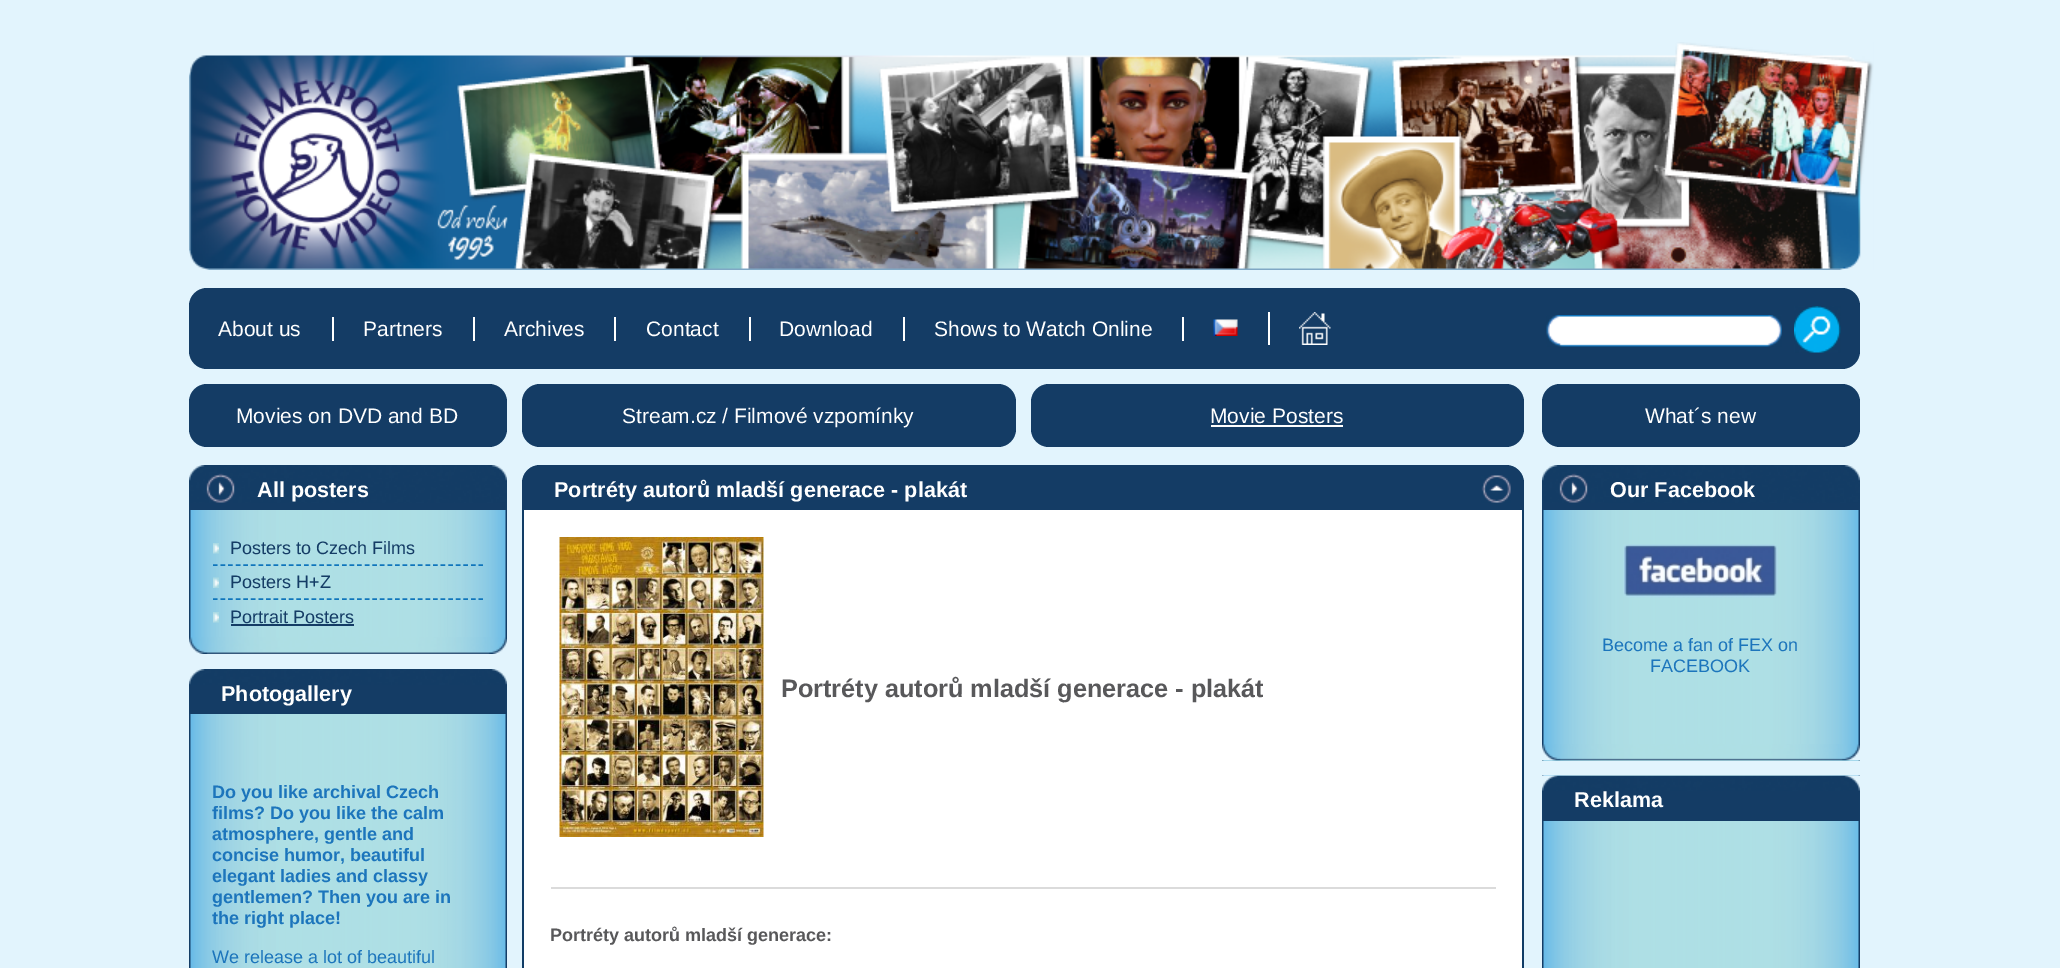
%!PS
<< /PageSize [2060 968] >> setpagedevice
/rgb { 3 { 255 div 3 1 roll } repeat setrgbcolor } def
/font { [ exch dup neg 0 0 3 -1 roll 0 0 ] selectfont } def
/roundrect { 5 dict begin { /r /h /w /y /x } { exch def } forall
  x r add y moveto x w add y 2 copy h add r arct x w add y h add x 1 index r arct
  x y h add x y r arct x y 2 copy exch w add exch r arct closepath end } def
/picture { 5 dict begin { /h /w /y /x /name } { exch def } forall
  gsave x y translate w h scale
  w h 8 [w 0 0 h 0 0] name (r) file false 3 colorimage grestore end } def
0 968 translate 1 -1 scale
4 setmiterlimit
226 244 253 rgb
0 0 2060 968 rectfill
20 60 101 rgb
189 288 1671 81 18 roundrect fill
255 255 255 rgb
1268 312 2 33 rectfill
(img/1.rgb) 189 42 1685 228 picture
(img/2.rgb) 1299 312 32 33 picture
[
  [332 317 2 24 255 255 255]
  [473 317 2 24 255 255 255]
  [614 317 2 24 255 255 255]
  [749 317 2 24 255 255 255]
  [903 317 2 24 255 255 255]
  [1182 317 2 24 255 255 255]
] { aload pop rgb rectfill } forall
(img/3.rgb) 1213 319 25 17 picture
(img/4.rgb) 1546 315 236 32 picture
(img/5.rgb) 1794 306 47 47 picture
20 60 101 rgb
189 384 318 63 18 roundrect fill
522 384 494 63 18 roundrect fill
1031 384 493 63 18 roundrect fill
255 255 255 rgb
1211 425 132 2 rectfill
20 60 101 rgb
1542 384 318 63 18 roundrect fill
(img/6.rgb) 189 510 318 127 picture
189 503 318 7 rectfill
(img/7.rgb) 189 465 318 38 picture
(img/8.rgb) 189 637 318 17 picture
(img/9.rgb) 213 543 6 11 picture
15 117 188 rgb
1.5 setlinewidth
[4.5 3.09] 0 setdash
213 565 moveto 483 565 lineto stroke
(img/10.rgb) 213 577 6 11 picture
213 599 moveto 483 599 lineto stroke
(img/9.rgb) 213 612 6 11 picture
20 60 101 rgb
231 624 123 2 rectfill
(img/11.rgb) 189 714 318 254 picture
189 685 318 29 rectfill
(img/12.rgb) 189 669 318 16 picture
540 465 moveto 1506 465 lineto 1516 465 1524 473 1524 483 curveto 1524 510 lineto 522 510 lineto 522 483 lineto 522 473 530 465 540 465 curveto closepath fill
(img/13.rgb) 1481 475 30 28 picture
255 255 255 rgb
524 510 998 458 rectfill
16 60 102 rgb
522 510 moveto 1524 510 lineto 1524 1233 lineto 1524 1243 1516 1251 1506 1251 curveto 540 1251 lineto 530 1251 522 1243 522 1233 curveto closepath 524 510 moveto 1522 510 lineto 1522 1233 lineto 1522 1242 1515 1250 1506 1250 curveto 540 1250 lineto 531 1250 524 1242 524 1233 curveto closepath eofill
(img/14.rgb) 559 537 205 300 picture
219 219 219 rgb
551 887 945 2 rectfill
174 223 229 rgb
1542 760 318 1 rectfill
(img/15.rgb) 1542 510 318 251 picture
20 60 101 rgb
1542 503 318 7 rectfill
(img/7.rgb) 1542 465 318 38 picture
(img/16.rgb) 1542 744 318 17 picture
(img/17.rgb) 1623 544 155 54 picture
(img/18.rgb) 1542 775 318 193 picture
1543 791 316 30 rectfill
(img/19.rgb) 1542 775 318 16 picture
/LiberationSans-Regular 21 font
255 255 255 rgb
[
  [(About us) 218 336]
  [(Partners) 363 336]
  [(Archives) 504 336]
  [(Contact) 646 336]
  [(Download) 779 336]
  [(Shows to Watch Online) 934 336]
  [(Movies on DVD and BD) 236 423]
  [(Stream.cz / Filmové vzpomínky) 622 423]
  [(Movie Posters) 1210 423]
  [(What´s new) 1645 423]
] { aload pop moveto show } forall
/LiberationSans-Bold 21.6 font
257 497 moveto (All posters) show
/LiberationSans-Regular 18 font
20 60 101 rgb
[
  [(Posters to Czech Films) 230 554]
  [(Posters H+Z) 230 588]
  [(Portrait Posters) 230 623]
] { aload pop moveto show } forall
/LiberationSans-Bold 21.6 font
255 255 255 rgb
221 701 moveto (Photogallery) show
/LiberationSans-Bold 18 font
28 117 188 rgb
[
  [(Do you like archival Czech) 212 798]
  [(films? Do you like the calm) 212 819]
  [(atmosphere, gentle and) 212 840]
  [(concise humor, beautiful) 212 861]
  [(elegant ladies and classy) 212 882]
  [(gentlemen? Then you are in) 212 903]
  [(the right place!) 212 924]
] { aload pop moveto show } forall
/LiberationSans-Regular 18 font
212 963 moveto (We release a lot of beautiful) show
/LiberationSans-Bold 21.6 font
255 255 255 rgb
554 497 moveto (Portréty autorů mladší generace - plakát) show
/LiberationSans-Bold 25.25 font
88 88 90 rgb
781 697 moveto (Portréty autorů mladší generace - plakát) show
/LiberationSans-Bold 18 font
550 941 moveto (Portréty autorů mladší generace:) show
/LiberationSans-Bold 21.6 font
255 255 255 rgb
1610 497 moveto (Our Facebook) show
/LiberationSans-Regular 18 font
28 117 188 rgb
1602 651 moveto (Become a fan of FEX on) show
1650 672 moveto (FACEBOOK) show
/LiberationSans-Bold 21.6 font
255 255 255 rgb
1574 807 moveto (Reklama) show
showpage
